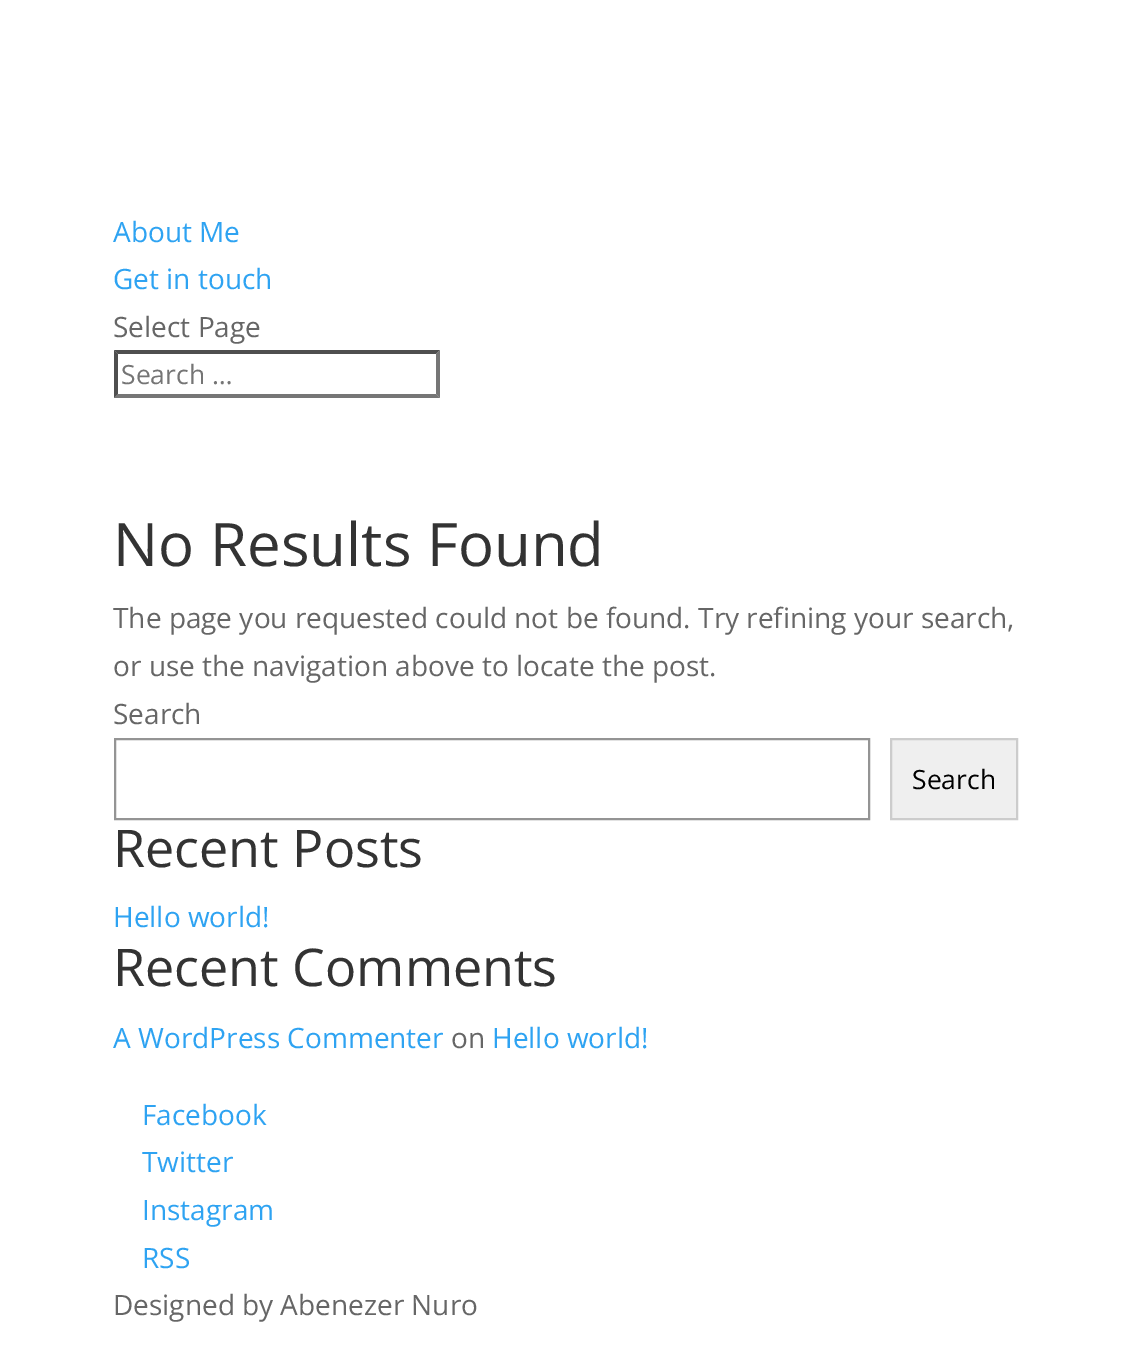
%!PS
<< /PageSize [1132 1355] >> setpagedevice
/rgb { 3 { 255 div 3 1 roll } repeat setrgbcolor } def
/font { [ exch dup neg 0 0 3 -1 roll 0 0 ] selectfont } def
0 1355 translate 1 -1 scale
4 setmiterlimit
255 255 255 rgb
0 0 1132 1355 rectfill
79 79 79 rgb
114 350 moveto 440 350 lineto 436 354 lineto 118 354 lineto closepath fill
118 118 118 rgb
440 350 moveto 440 398 lineto 436 394 lineto 436 354 lineto closepath fill
440 398 moveto 114 398 lineto 118 394 lineto 436 394 lineto closepath fill
79 79 79 rgb
114 398 moveto 114 350 lineto 118 354 lineto 118 394 lineto closepath fill
148 148 148 rgb
2 setlinewidth
115 739 754 80 rectstroke
239 239 239 rgb
891 739 moveto 1017 739 lineto 1017 819 lineto 891 819 lineto closepath gsave fill grestore
204 204 204 rgb
stroke
/OpenSans-Regular 28 font
46 163 242 rgb
113 242 moveto (About Me) show
113 289 moveto (Get in touch) show
102 102 102 rgb
113 337 moveto (Select Page) show
/OpenSans-Regular 26.5 font
117 117 117 rgb
121 384 moveto (Search …) show
/OpenSans-Regular 60 font
51 51 51 rgb
113 566 moveto (No Results Found) show
/OpenSans-Regular 28 font
102 102 102 rgb
[
  [(The page you requested could not be found. Try refining your search,) 113 628]
  [(or use the navigation above to locate the post.) 113 676]
  [(Search) 113 724]
] { aload pop moveto show } forall
/OpenSans-Regular 26.5 font
0 0 0 rgb
912 789 moveto (Search) show
/OpenSans-Regular 52 font
51 51 51 rgb
113 867 moveto (Recent Posts) show
/OpenSans-Regular 28 font
46 163 242 rgb
113 927 moveto (Hello world!) show
/OpenSans-Regular 52 font
51 51 51 rgb
113 986 moveto (Recent Comments) show
/OpenSans-Regular 28 font
46 163 242 rgb
113 1048 moveto (A WordPress Commenter) show
102 102 102 rgb
451 1048 moveto (on) show
46 163 242 rgb
[
  [(Hello world!) 492 1048]
  [(Facebook) 142 1125]
  [(Twitter) 142 1172]
  [(Instagram) 142 1220]
  [(RSS) 142 1268]
] { aload pop moveto show } forall
102 102 102 rgb
113 1315 moveto (Designed by Abenezer Nuro) show
showpage
